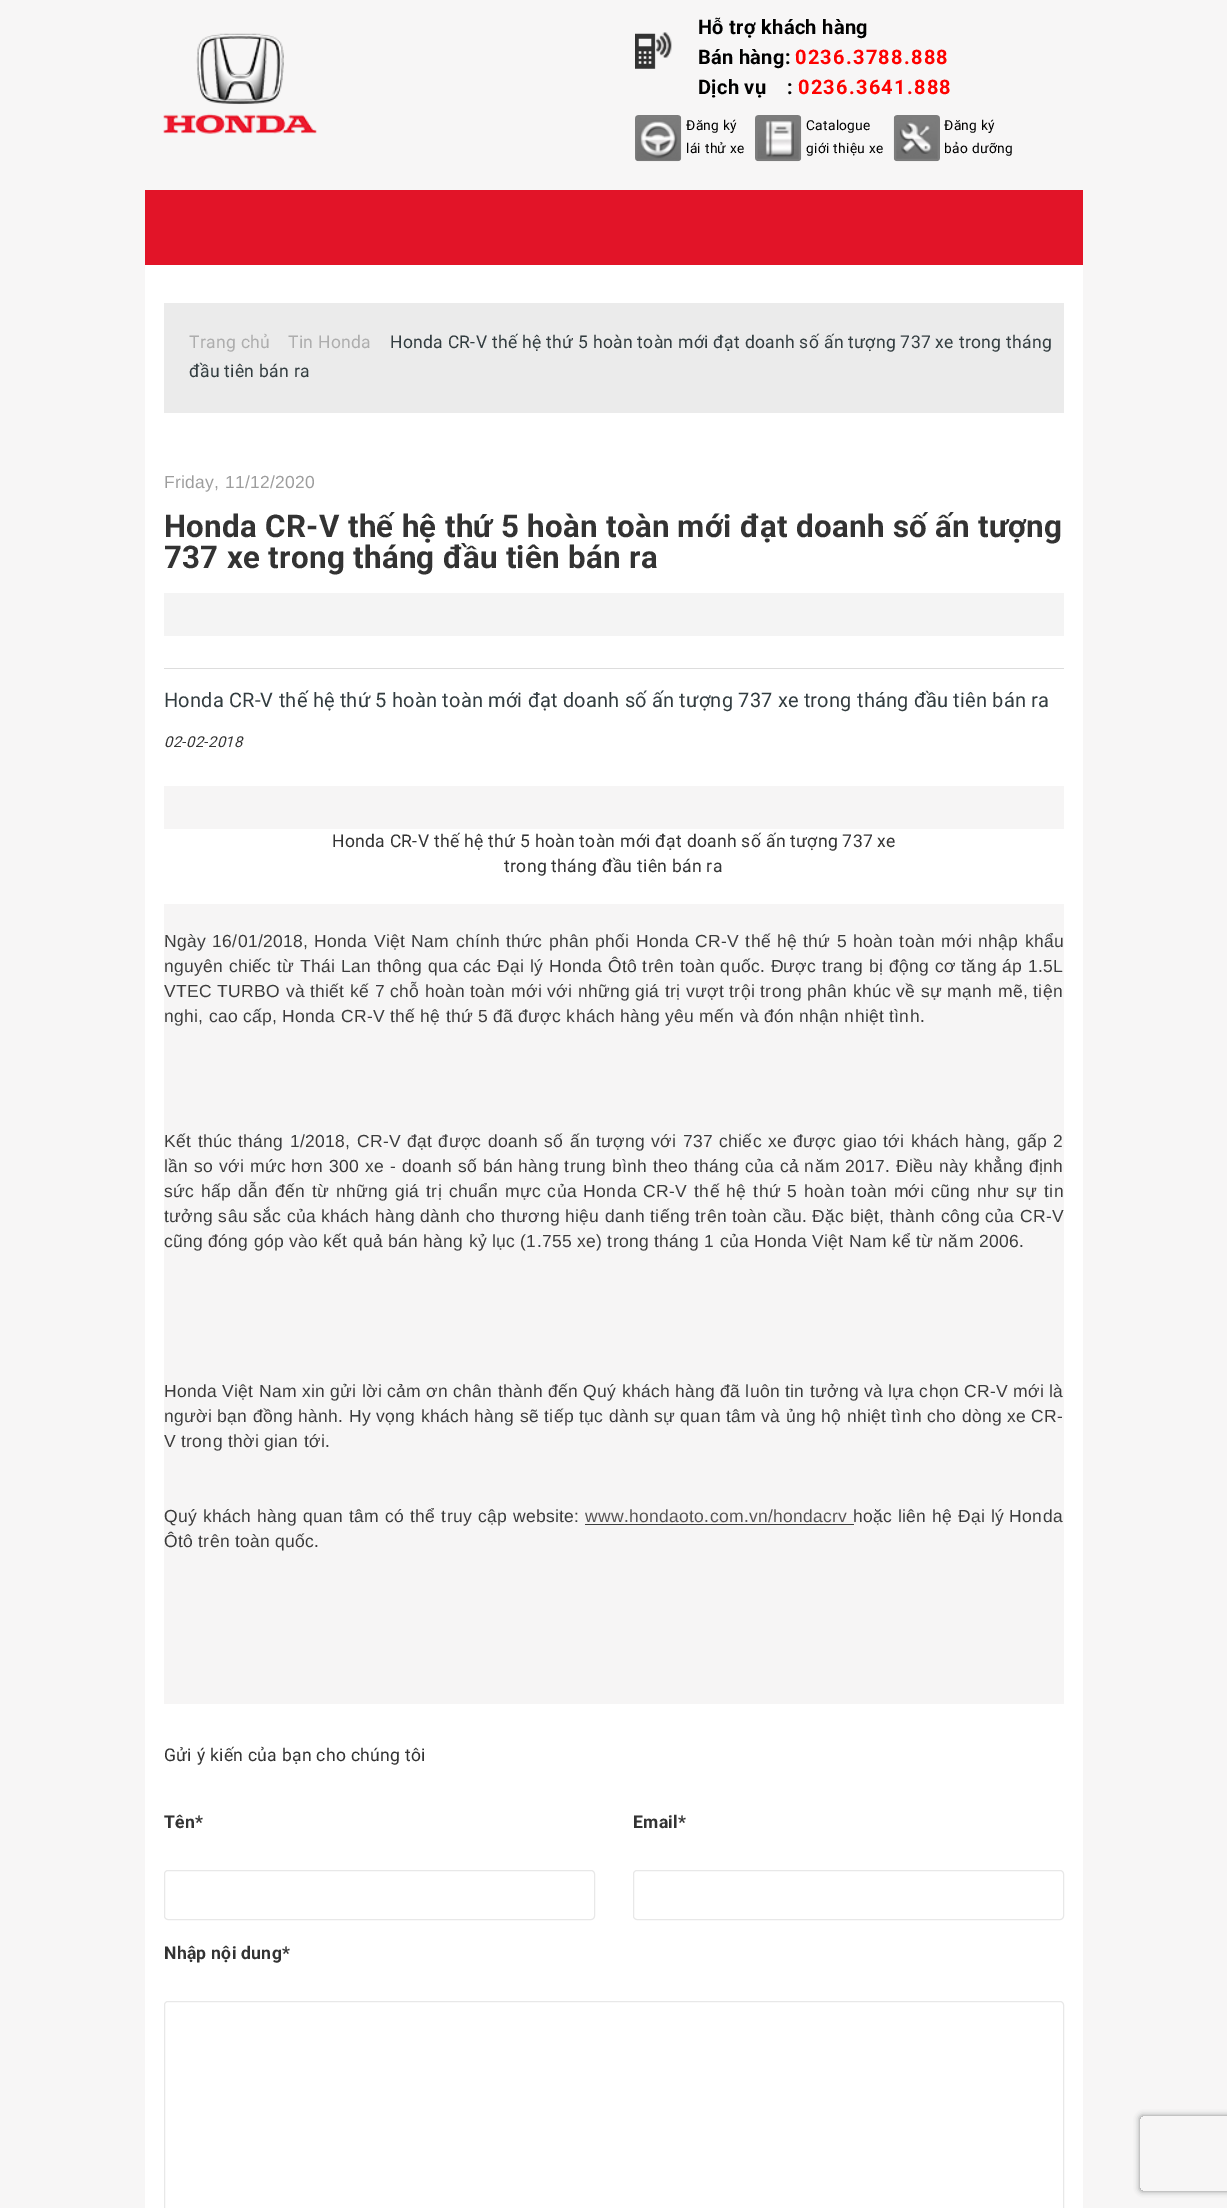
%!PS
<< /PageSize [1227 2208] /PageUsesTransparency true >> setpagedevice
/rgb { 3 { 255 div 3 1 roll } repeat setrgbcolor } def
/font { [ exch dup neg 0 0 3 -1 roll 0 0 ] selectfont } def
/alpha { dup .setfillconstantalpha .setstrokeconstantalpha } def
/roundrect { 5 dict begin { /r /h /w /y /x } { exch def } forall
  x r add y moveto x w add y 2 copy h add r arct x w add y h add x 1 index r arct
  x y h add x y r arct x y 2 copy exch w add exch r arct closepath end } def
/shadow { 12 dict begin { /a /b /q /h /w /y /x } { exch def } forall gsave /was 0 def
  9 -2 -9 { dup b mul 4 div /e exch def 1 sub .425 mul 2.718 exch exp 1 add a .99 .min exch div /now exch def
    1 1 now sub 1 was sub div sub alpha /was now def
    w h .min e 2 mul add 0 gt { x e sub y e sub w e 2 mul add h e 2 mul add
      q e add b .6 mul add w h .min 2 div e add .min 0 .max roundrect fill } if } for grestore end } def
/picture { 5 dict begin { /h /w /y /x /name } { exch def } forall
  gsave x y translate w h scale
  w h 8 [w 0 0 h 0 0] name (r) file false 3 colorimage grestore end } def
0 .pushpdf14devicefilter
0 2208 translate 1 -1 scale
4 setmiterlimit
247 246 246 rgb
0 0 1227 2208 rectfill
(img/1.rgb) 163 33 154 101 picture
(img/2.rgb) 635 32 37 37 picture
(img/3.rgb) 635 115 47 47 picture
(img/4.rgb) 755 115 47 47 picture
(img/5.rgb) 893 115 47 47 picture
[
  [145 190 938 75 226 20 40]
  [145 265 938 1943 255 255 255]
  [164 303 900 110 235 235 235]
  [164 593 900 43 244 244 244]
  [164 668 900 1 221 221 221]
  [164 786 900 43 246 245 245]
  [164 904 900 800 246 245 245]
  [585 1524 269 1 60 60 60]
] { aload pop rgb rectfill } forall
232 232 232 rgb
164.5 1870.5 430 49 3.5 roundrect stroke
633.5 1870.5 430 49 3.5 roundrect stroke
164.5 2001.5 899 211 3.5 roundrect stroke
gsave
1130 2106 moveto 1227 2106 lineto 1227 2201 lineto 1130 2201 lineto closepath 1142.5 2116 moveto 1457.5 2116 lineto 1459 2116 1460 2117 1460 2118.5 curveto 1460 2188.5 lineto 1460 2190 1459 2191 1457.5 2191 curveto 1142.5 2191 lineto 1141 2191 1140 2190 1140 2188.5 curveto 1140 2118.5 lineto 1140 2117 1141 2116 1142.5 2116 curveto closepath eoclip newpath
128 128 128 rgb
1140 2116 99 75 2.5 3 1 shadow
grestore
/Roboto-Bold 20 font
0 0 0 rgb
698 34 moveto 0.31 0 (Hỗ trợ khách hàng) ashow
698 64 moveto 0.31 0 (Bán hàng:) ashow
253 2 0 rgb
795 64 moveto 1.25 0 (0236.3788.888) ashow
0 0 0 rgb
698 94 moveto 0.31 0 (Dịch vụ    :) ashow
253 2 0 rgb
798 94 moveto 1.25 0 (0236.3641.888) ashow
/Roboto-Regular 13.75 font
0 0 0 rgb
686 130 moveto 0.31 0 (Đăng ký) ashow
686 153 moveto 0.31 0 (lái thử xe) ashow
806 130 moveto 0.31 0 (Catalogue) ashow
806 153 moveto 0.31 0 (giới thiệu xe) ashow
944 130 moveto 0.31 0 (Đăng ký) ashow
944 153 moveto 0.31 0 (bảo dưỡng) ashow
/Roboto-Regular 17.5 font
173 173 173 rgb
189 348 moveto 0.31 0 (Trang chủ) ashow
288 348 moveto 0.31 0 (Tin Honda) ashow
50 60 63 rgb
390 348 moveto 0.31 0 (Honda CR-V thế hệ thứ 5 hoàn toàn mới đạt doanh số ấn tượng 737 xe trong tháng) ashow
189 377 moveto 0.31 0 (đầu tiên bán ra) ashow
/LiberationSans-Regular 17.5 font
157 157 157 rgb
164 488 moveto 0.31 0 (Friday, 11/12/2020) ashow
/Roboto-Bold 31.25 font
51 51 51 rgb
164 537 moveto 0.31 0 (Honda CR-V thế hệ thứ 5 hoàn toàn mới đạt doanh số ấn tượng) ashow
164 568 moveto 0.31 0 (737 xe trong tháng đầu tiên bán ra) ashow
/Roboto-Regular 20 font
50 60 63 rgb
164 707 moveto 0.2 0 (Honda CR-V thế hệ thứ 5 hoàn toàn mới đạt doanh số ấn tượng 737 xe trong tháng đầu tiên bán ra) ashow
/Roboto-Italic 15 font
51 51 51 rgb
164 747 moveto 0.31 0 (02-02-2018) ashow
/Roboto-Regular 17.5 font
332 847 moveto 0.31 0 (Honda CR-V thế hệ thứ 5 hoàn toàn mới đạt doanh số ấn tượng 737 xe) ashow
504 872 moveto 0.31 0 (trong tháng đầu tiên bán ra) ashow
/LiberationSans-Regular 17.5 font
60 60 60 rgb
164 947 moveto 1.1 0 32 0.31 0 (Ngày 16/01/2018, Honda Việt Nam chính thức phân phối Honda CR-V thế hệ thứ 5 hoàn toàn mới nhập khẩu) awidthshow
164 972 moveto 0.5 0 32 0.31 0 (nguyên chiếc từ Thái Lan thông qua các Đại lý Honda Ôtô trên toàn quốc. Được trang bị động cơ tăng áp 1.5L) awidthshow
164 997 moveto 0.25 0 32 0.31 0 (VTEC TURBO và thiết kế 7 chỗ hoàn toàn mới với những giá trị vượt trội trong phân khúc về sự mạnh mẽ, tiện) awidthshow
164 1022 moveto 0.31 0 (nghi, cao cấp, Honda CR-V thế hệ thứ 5 đã được khách hàng yêu mến và đón nhận nhiệt tình.) ashow
164 1147 moveto 1.15 0 32 0.31 0 (Kết thúc tháng 1/2018, CR-V đạt được doanh số ấn tượng với 737 chiếc xe được giao tới khách hàng, gấp 2) awidthshow
164 1172 moveto 0.6 0 32 0.31 0 (lần so với mức hơn 300 xe - doanh số bán hàng trung bình theo tháng của cả năm 2017. Điều này khẳng định) awidthshow
164 1197 moveto 1.7 0 32 0.31 0 (sức hấp dẫn đến từ những giá trị chuẩn mực của Honda CR-V thế hệ thứ 5 hoàn toàn mới cũng như sự tin) awidthshow
164 1222 moveto 0.25 0 32 0.31 0 (tưởng sâu sắc của khách hàng dành cho thương hiệu danh tiếng trên toàn cầu. Đặc biệt, thành công của CR-V) awidthshow
164 1247 moveto 0.31 0 (cũng đóng góp vào kết quả bán hàng kỷ lục \(1.755 xe\) trong tháng 1 của Honda Việt Nam kể từ năm 2006.) ashow
164 1397 moveto 0.31 0 (Honda Việt Nam xin gửi lời cảm ơn chân thành đến Quý khách hàng đã luôn tin tưởng và lựa chọn CR-V mới là) ashow
164 1422 moveto 0.15 0 32 0.31 0 (người bạn đồng hành. Hy vọng khách hàng sẽ tiếp tục dành sự quan tâm và ủng hộ nhiệt tình cho dòng xe CR-) awidthshow
164 1447 moveto 0.31 0 (V trong thời gian tới.) ashow
164 1522 moveto 0.75 0 32 0.31 0 (Quý khách hàng quan tâm có thể truy cập website:) awidthshow
87 84 84 rgb
585 1522 moveto 0.31 0 (www.hondaoto.com.vn/hondacrv) ashow
60 60 60 rgb
853 1522 moveto 0.5 0 32 0.31 0 (hoặc liên hệ Đại lý Honda) awidthshow
164 1547 moveto 0.31 0 (Ôtô trên toàn quốc.) ashow
/Roboto-Regular 17.5 font
51 51 51 rgb
164 1761 moveto 0.31 0 (Gửi ý kiến của bạn cho chúng tôi) ashow
/Roboto-Bold 17.5 font
164 1828 moveto 0.31 0 (Tên*) ashow
633 1828 moveto 0.31 0 (Email*) ashow
164 1959 moveto 0.31 0 (Nhập nội dung*) ashow
.poppdf14devicefilter showpage
